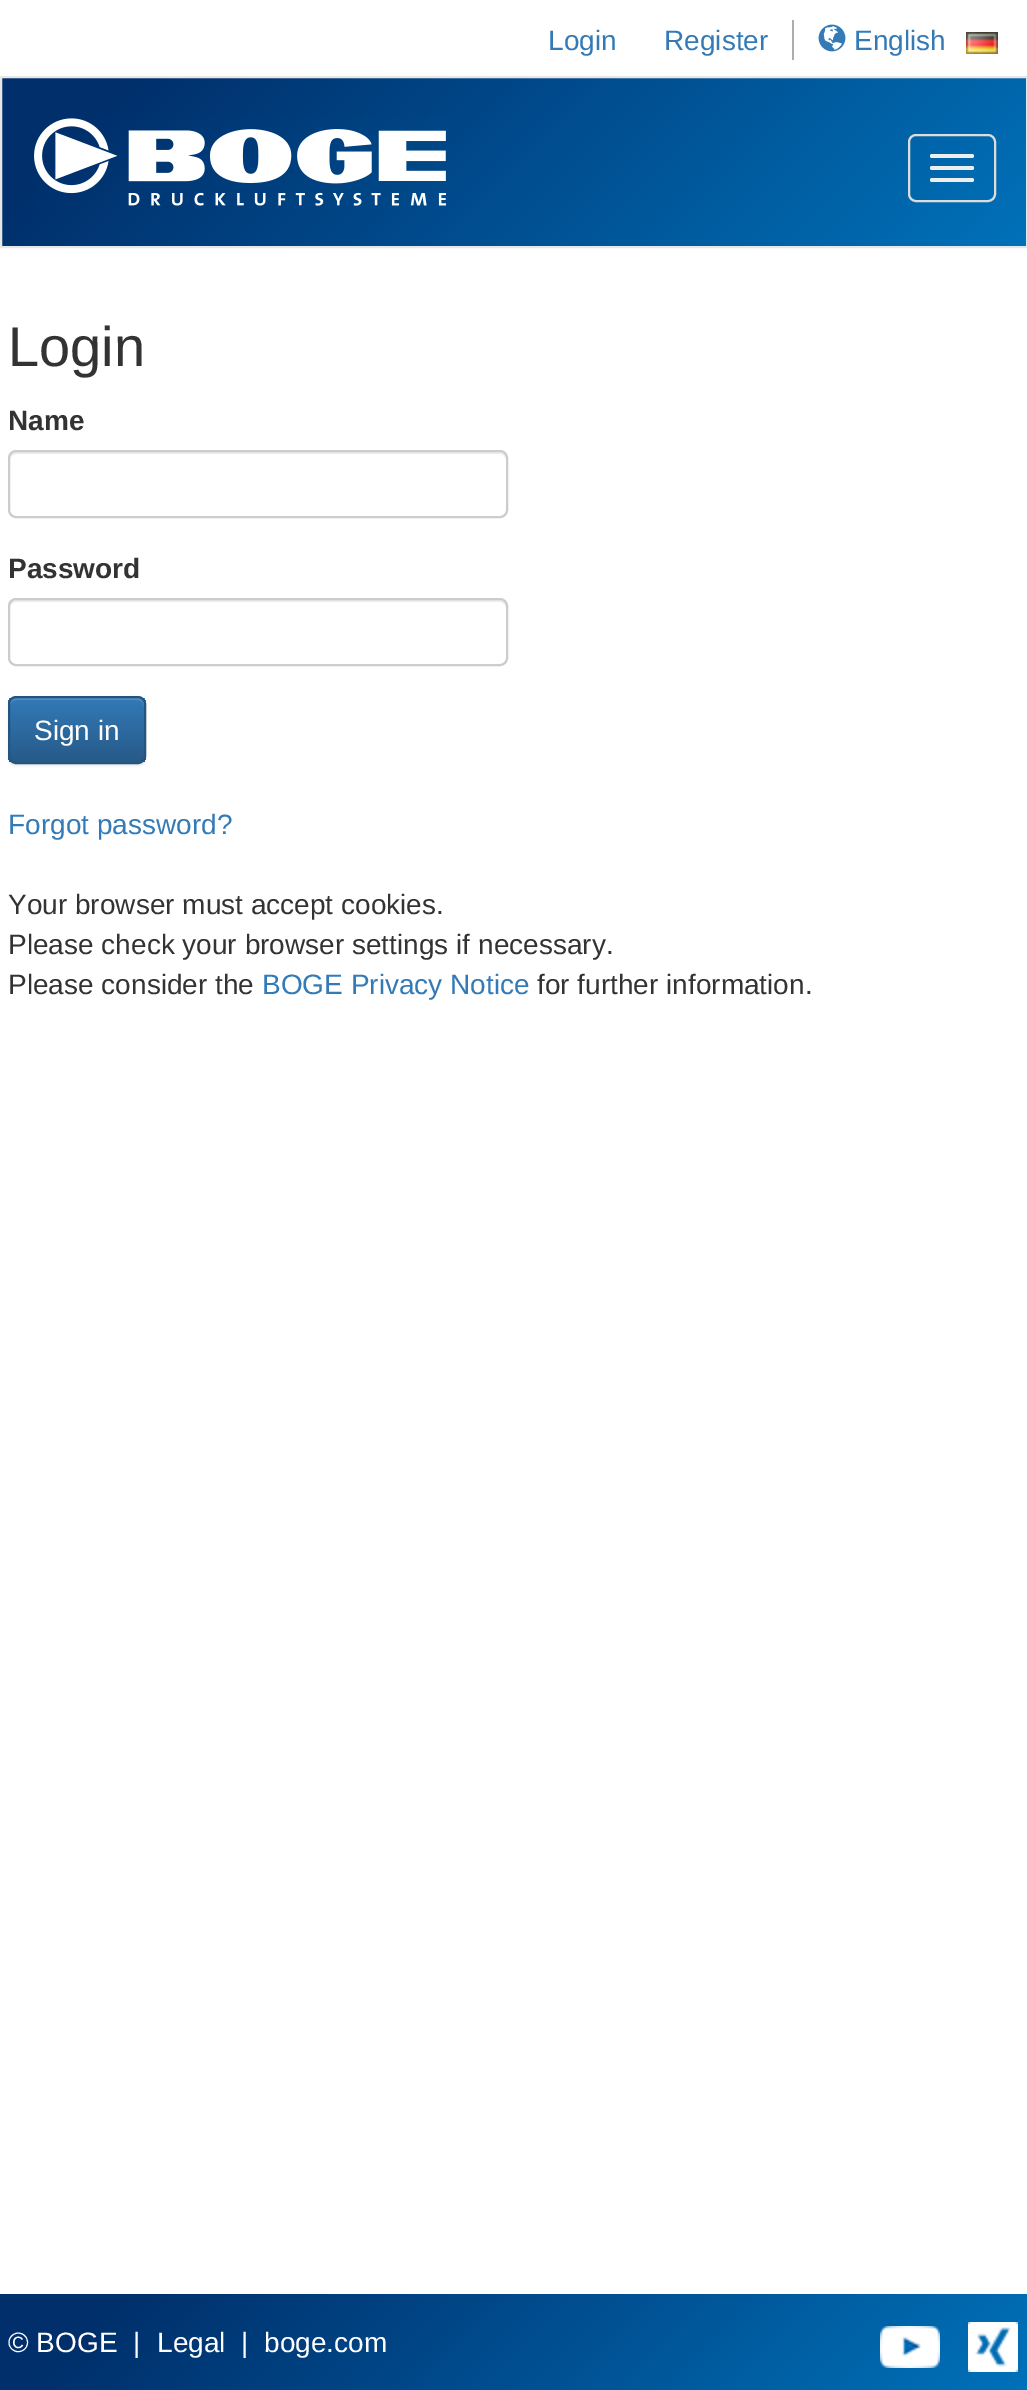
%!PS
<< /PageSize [1027 2390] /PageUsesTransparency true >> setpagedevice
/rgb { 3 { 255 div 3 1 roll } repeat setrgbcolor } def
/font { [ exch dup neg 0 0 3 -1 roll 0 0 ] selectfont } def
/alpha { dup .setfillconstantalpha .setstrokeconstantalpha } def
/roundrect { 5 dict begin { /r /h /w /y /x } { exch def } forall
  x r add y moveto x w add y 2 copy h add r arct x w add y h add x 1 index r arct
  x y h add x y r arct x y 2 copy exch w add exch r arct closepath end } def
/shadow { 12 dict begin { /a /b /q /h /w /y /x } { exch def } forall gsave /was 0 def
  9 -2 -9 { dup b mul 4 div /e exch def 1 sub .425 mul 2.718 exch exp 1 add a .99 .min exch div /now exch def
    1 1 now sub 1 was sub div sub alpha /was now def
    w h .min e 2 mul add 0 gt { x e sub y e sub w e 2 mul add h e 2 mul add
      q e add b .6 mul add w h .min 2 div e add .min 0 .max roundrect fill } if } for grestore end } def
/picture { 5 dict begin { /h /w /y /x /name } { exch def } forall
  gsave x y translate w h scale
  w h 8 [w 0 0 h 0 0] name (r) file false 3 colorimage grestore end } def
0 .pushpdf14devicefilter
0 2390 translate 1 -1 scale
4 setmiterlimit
255 255 255 rgb
0 0 1027 2390 rectfill
173 173 173 rgb
792 20 2 40 rectfill
(img/1.rgb) 818 24 28 28 picture
(img/2.rgb) 966 32 32 22 picture
gsave 2 78 moveto 1026 78 lineto 1026 246 lineto 2 246 lineto closepath clip newpath
<< /ShadingType 2 /ColorSpace /DeviceRGB /Coords [216 -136 812 460] /Extend [true true] /Function << /FunctionType 3 /Domain [0 1] /Functions [<< /FunctionType 2 /Domain [0 1] /C0 [0 0.184 0.42] /C1 [0 0.184 0.42] /N 1 >> << /FunctionType 2 /Domain [0 1] /C0 [0 0.184 0.42] /C1 [0 0.443 0.725] /N 1 >>] /Bounds [0.1] /Encode [0 1 0 1] >> >> shfill grestore
231 231 231 rgb
2 setlinewidth
1 77 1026 170 rectstroke
(img/3.rgb) 34 118 412 88 picture
221 221 221 rgb
909 135 86 66 7 roundrect stroke
238 238 238 rgb
930 154 44 4 2 roundrect fill
930 166 44 4 2 roundrect fill
930 178 44 4 2 roundrect fill
236 236 236 rgb
16 454 moveto 500 454 lineto 503 454 506 457 506 460 curveto 506 456 505 452 500 452 curveto 16 452 lineto 11 452 10 456 10 460 curveto 10 457 13 454 16 454 curveto closepath fill
204 204 204 rgb
9 451 498 66 7 roundrect stroke
236 236 236 rgb
16 602 moveto 500 602 lineto 503 602 506 605 506 608 curveto 506 604 505 600 500 600 curveto 16 600 lineto 11 600 10 604 10 608 curveto 10 605 13 602 16 602 curveto closepath fill
204 204 204 rgb
9 599 498 66 7 roundrect stroke
0 0 0 rgb
8 698 138 68 8 1 0.07 shadow
gsave
8 696 138 68 8 roundrect clip newpath
gsave 8 698 moveto 146 698 lineto 146 762 lineto 8 762 lineto closepath clip newpath
<< /ShadingType 2 /ColorSpace /DeviceRGB /Coords [77 698 77 762] /Extend [true true] /Function << /FunctionType 2 /Domain [0 1] /C0 [0.2 0.478 0.718] /C1 [0.149 0.353 0.533] /N 1 >> >> shfill grestore
grestore
0.15 alpha
255 255 255 rgb
16 700 moveto 138 700 lineto 141 700 144 703 144 706 curveto 144 704 lineto 144 701 141 698 138 698 curveto 16 698 lineto 13 698 10 701 10 704 curveto 10 706 lineto 10 703 13 700 16 700 curveto closepath fill
1 alpha
36 85 128 rgb
9 697 136 66 7 roundrect stroke
gsave 0 2294 moveto 1027 2294 lineto 1027 2390 lineto 0 2390 lineto closepath clip newpath
<< /ShadingType 2 /ColorSpace /DeviceRGB /Coords [233 2061 795 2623] /Extend [true true] /Function << /FunctionType 3 /Domain [0 1] /Functions [<< /FunctionType 2 /Domain [0 1] /C0 [0 0.184 0.42] /C1 [0 0.184 0.42] /N 1 >> << /FunctionType 2 /Domain [0 1] /C0 [0 0.184 0.42] /C1 [0 0.443 0.725] /N 1 >>] /Bounds [0.1] /Encode [0 1 0 1] >> >> shfill grestore
(img/4.rgb) 880 2326 60 42 picture
(img/5.rgb) 968 2322 50 50 picture
/LiberationSans-Regular 28 font
51 122 183 rgb
[
  [(Login) 548 50]
  [(Register) 664 50]
  [(English) 854 50]
] { aload pop moveto show } forall
/LiberationSans-Regular 56 font
51 51 51 rgb
8 366 moveto (Login) show
/LiberationSans-Bold 28 font
8 430 moveto (Name) show
8 578 moveto (Password) show
/LiberationSans-Regular 28 font
255 255 255 rgb
34 740 moveto (Sign in) show
51 122 183 rgb
8 834 moveto (Forgot password?) show
51 51 51 rgb
[
  [(Your browser must accept cookies.) 8 914]
  [(Please check your browser settings if necessary.) 8 954]
  [(Please consider the) 8 994]
] { aload pop moveto show } forall
51 122 183 rgb
262 994 moveto (BOGE Privacy Notice) show
51 51 51 rgb
537 994 moveto (for further information.) show
255 255 255 rgb
[
  [(© BOGE) 8 2352]
  [(|) 133 2352]
  [(Legal) 157 2352]
  [(|) 241 2352]
  [(boge.com) 264 2352]
] { aload pop moveto show } forall
.poppdf14devicefilter showpage
